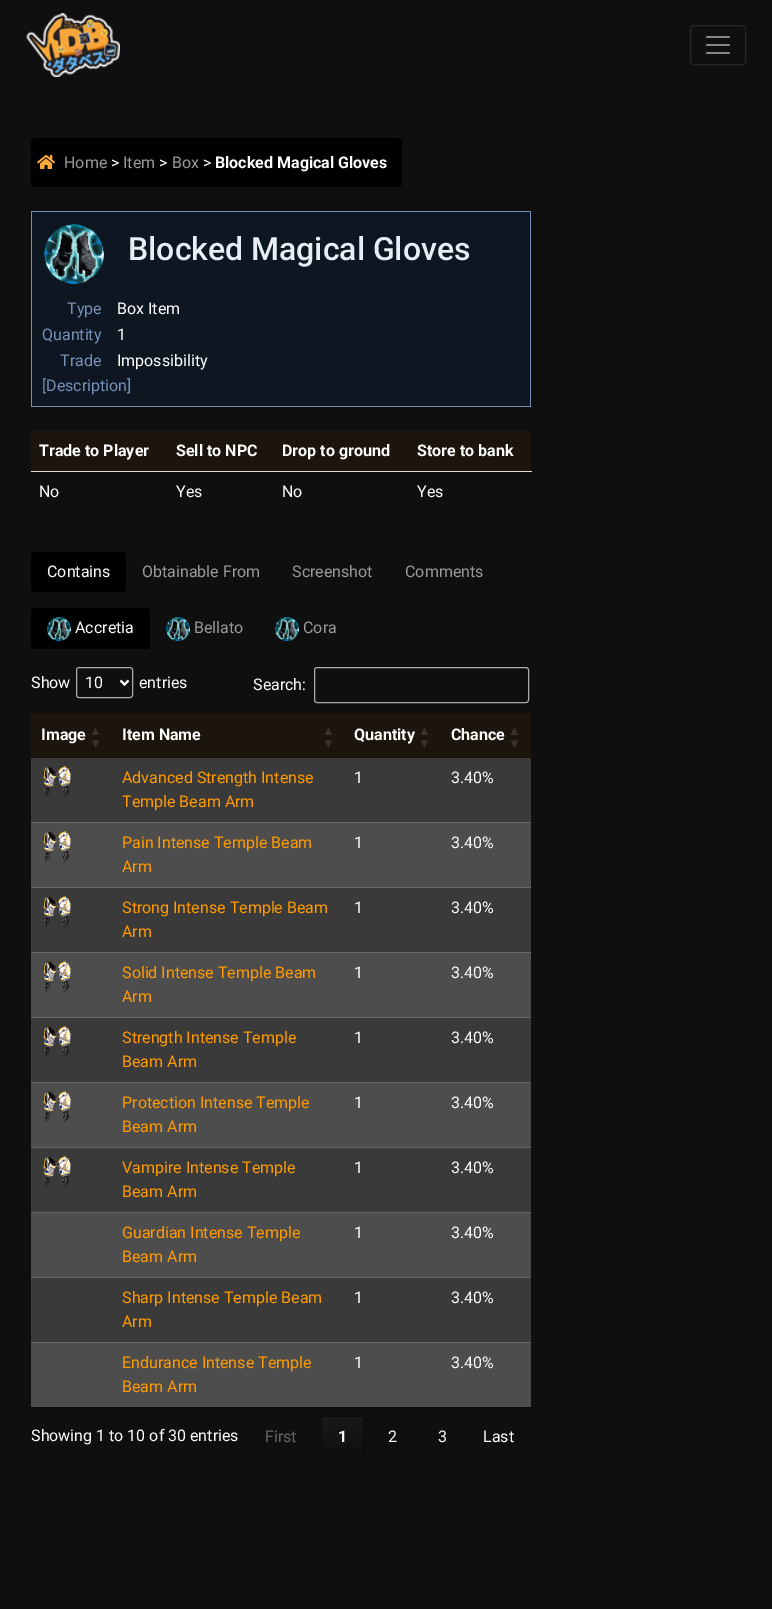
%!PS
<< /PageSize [772 1609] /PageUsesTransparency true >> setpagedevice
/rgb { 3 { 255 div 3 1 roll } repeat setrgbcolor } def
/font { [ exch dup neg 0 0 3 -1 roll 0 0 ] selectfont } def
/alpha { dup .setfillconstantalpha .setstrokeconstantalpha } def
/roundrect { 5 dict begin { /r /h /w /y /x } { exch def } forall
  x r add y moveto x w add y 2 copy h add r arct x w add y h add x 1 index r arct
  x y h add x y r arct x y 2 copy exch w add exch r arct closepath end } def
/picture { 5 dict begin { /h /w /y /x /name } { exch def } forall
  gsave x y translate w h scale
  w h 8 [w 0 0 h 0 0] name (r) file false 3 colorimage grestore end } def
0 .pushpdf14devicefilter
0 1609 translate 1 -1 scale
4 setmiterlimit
15 15 15 rgb
0 0 772 1609 rectfill
(img/1.rgb) 26 13 94 64 picture
39 39 39 rgb
690.5 25.5 55 39 3.5 roundrect stroke
(img/2.rgb) 706 36 24 18 picture
0 0 0 rgb
31 138 371 49 4 roundrect fill
(img/3.rgb) 37 155 18 14 picture
[
  [32 212 498 194 14 23 33]
  [31 211 500 1 117 144 183]
  [530 211 1 196 117 144 183]
  [31 211 1 85 117 144 183]
] { aload pop rgb rectfill } forall
(img/4.rgb) 44 224 60 60 picture
[
  [31 406 500 1 117 144 183]
  [31 296 1 111 117 144 183]
  [31 431 500 40 28 21 13]
  [31 471 501 1 221 221 221]
] { aload pop rgb rectfill } forall
0 0 0 rgb
31 552 95 40 4 roundrect fill
31 608 119 41 4 roundrect fill
(img/5.rgb) 47 617 24 24 picture
(img/6.rgb) 166 617 24 24 picture
(img/7.rgb) 275 617 24 24 picture
170 170 170 rgb
76.5 667.5 56 30 2.5 roundrect stroke
255 255 255 rgb
2 setlinewidth
120.5 680.5 moveto 124.5 684.5 lineto 128.5 680.5 lineto stroke
170 170 170 rgb
1 setlinewidth
314.5 667.5 214 35 2.5 roundrect stroke
[
  [31 1407 500 1 11 11 11]
  [31 713 500 44 28 21 13]
  [31 757 500 1 20 15 9]
  [31 758 500 64 58 58 58]
] { aload pop rgb rectfill } forall
(img/8.rgb) 43 766 28 32 picture
77 77 77 rgb
31 823 500 64 rectfill
102 102 102 rgb
31 822 500 1 rectfill
(img/9.rgb) 43 831 28 32 picture
58 58 58 rgb
31 888 500 64 rectfill
102 102 102 rgb
31 887 500 1 rectfill
(img/8.rgb) 43 896 28 32 picture
77 77 77 rgb
31 953 500 64 rectfill
102 102 102 rgb
31 952 500 1 rectfill
(img/9.rgb) 43 961 28 32 picture
58 58 58 rgb
31 1018 500 64 rectfill
102 102 102 rgb
31 1017 500 1 rectfill
(img/8.rgb) 43 1026 28 32 picture
77 77 77 rgb
31 1083 500 64 rectfill
102 102 102 rgb
31 1082 500 1 rectfill
(img/9.rgb) 43 1091 28 32 picture
58 58 58 rgb
31 1148 500 64 rectfill
102 102 102 rgb
31 1147 500 1 rectfill
(img/8.rgb) 43 1156 28 32 picture
[
  [31 1213 500 64 77 77 77]
  [31 1212 500 1 102 102 102]
  [31 1278 500 64 58 58 58]
  [31 1277 500 1 102 102 102]
  [31 1343 500 64 77 77 77]
  [31 1342 500 1 102 102 102]
] { aload pop rgb rectfill } forall
gsave
321 1416 43 42 2 roundrect clip newpath
gsave 321 1417 moveto 364 1417 lineto 364 1457 lineto 321 1457 lineto closepath clip newpath
<< /ShadingType 2 /ColorSpace /DeviceRGB /Coords [343 1417 343 1457] /Extend [true true] /Function << /FunctionType 2 /Domain [0 1] /C0 [0.102 0.102 0.102] /C1 [0.055 0.055 0.055] /N 1 >> >> shfill grestore
gsave 321 1457 moveto 364 1457 lineto 364 1458 lineto 321 1458 lineto closepath clip newpath
<< /ShadingType 2 /ColorSpace /DeviceRGB /Coords [343 1457 343 1497] /Extend [true true] /Function << /FunctionType 2 /Domain [0 1] /C0 [0.102 0.102 0.102] /C1 [0.055 0.055 0.055] /N 1 >> >> shfill grestore
grestore
0.3 alpha
0 0 0 rgb
321.5 1416.5 42 41 1.5 roundrect stroke
/Roboto-Regular 16 font
1 alpha
153 153 153 rgb
64 168 moveto (Home) show
255 255 255 rgb
111 168 moveto (>) show
153 153 153 rgb
123 168 moveto (Item) show
255 255 255 rgb
159 168 moveto (>) show
153 153 153 rgb
172 168 moveto (Box) show
255 255 255 rgb
203 168 moveto (>) show
/Roboto-Bold 16 font
215 168 moveto (Blocked Magical Gloves) show
/Roboto-Medium 32 font
232 237 247 rgb
128 260 moveto (Blocked Magical Gloves) show
/Roboto-Regular 16 font
117 144 183 rgb
67 314 moveto (Type) show
255 255 255 rgb
117 314 moveto (Box Item) show
117 144 183 rgb
42 340 moveto (Quantity) show
255 255 255 rgb
117 340 moveto (1) show
117 144 183 rgb
60 366 moveto (Trade) show
255 255 255 rgb
117 366 moveto (Impossibility) show
117 144 183 rgb
42 391 moveto ([Description]) show
/Roboto-Bold 16 font
255 255 255 rgb
[
  [(Trade to Player) 39 456]
  [(Sell to NPC) 176 456]
  [(Drop to ground) 282 456]
  [(Store to bank) 417 456]
] { aload pop moveto show } forall
/Roboto-Regular 16 font
[
  [(No) 39 497]
  [(Yes) 176 497]
  [(No) 282 497]
  [(Yes) 417 497]
  [(Contains) 47 577]
] { aload pop moveto show } forall
153 153 153 rgb
[
  [(Obtainable From) 142 577]
  [(Screenshot) 292 577]
  [(Comments) 405 577]
] { aload pop moveto show } forall
255 255 255 rgb
75 633 moveto (Accretia) show
153 153 153 rgb
194 633 moveto (Bellato) show
303 633 moveto (Cora) show
255 255 255 rgb
[
  [(Show) 31 688]
  [(10) 85 688]
  [(entries) 139 688]
  [(Search:) 253 690]
] { aload pop moveto show } forall
/Roboto-Bold 16 font
41 740 moveto (Image) show
/LiberationSans-Bold 13 font
56 50 43 rgb
89 735 moveto (▲) show
/LiberationSerif-Regular 13 font
89 748 moveto (▼) show
/Roboto-Bold 16 font
255 255 255 rgb
122 740 moveto (Item Name) show
/LiberationSans-Bold 13 font
56 50 43 rgb
322 735 moveto (▲) show
/LiberationSerif-Regular 13 font
322 748 moveto (▼) show
/Roboto-Bold 16 font
255 255 255 rgb
354 740 moveto (Quantity) show
/LiberationSans-Bold 13 font
56 50 43 rgb
418 735 moveto (▲) show
/LiberationSerif-Regular 13 font
418 748 moveto (▼) show
/Roboto-Bold 16 font
255 255 255 rgb
451 740 moveto (Chance) show
/LiberationSans-Bold 13 font
56 50 43 rgb
508 735 moveto (▲) show
/LiberationSerif-Regular 13 font
508 748 moveto (▼) show
/Roboto-Regular 16 font
255 153 0 rgb
122 783 moveto (Advanced Strength Intense) show
122 807 moveto (Temple Beam Arm) show
255 255 255 rgb
354 783 moveto (1) show
451 783 moveto (3.40%) show
255 153 0 rgb
122 848 moveto (Pain Intense Temple Beam) show
122 872 moveto (Arm) show
255 255 255 rgb
354 848 moveto (1) show
451 848 moveto (3.40%) show
255 153 0 rgb
122 913 moveto (Strong Intense Temple Beam) show
122 937 moveto (Arm) show
255 255 255 rgb
354 913 moveto (1) show
451 913 moveto (3.40%) show
255 153 0 rgb
122 978 moveto (Solid Intense Temple Beam) show
122 1002 moveto (Arm) show
255 255 255 rgb
354 978 moveto (1) show
451 978 moveto (3.40%) show
255 153 0 rgb
122 1043 moveto (Strength Intense Temple) show
122 1067 moveto (Beam Arm) show
255 255 255 rgb
354 1043 moveto (1) show
451 1043 moveto (3.40%) show
255 153 0 rgb
122 1108 moveto (Protection Intense Temple) show
122 1132 moveto (Beam Arm) show
255 255 255 rgb
354 1108 moveto (1) show
451 1108 moveto (3.40%) show
255 153 0 rgb
122 1173 moveto (Vampire Intense Temple) show
122 1197 moveto (Beam Arm) show
255 255 255 rgb
354 1173 moveto (1) show
451 1173 moveto (3.40%) show
255 153 0 rgb
122 1238 moveto (Guardian Intense Temple) show
122 1262 moveto (Beam Arm) show
255 255 255 rgb
354 1238 moveto (1) show
451 1238 moveto (3.40%) show
255 153 0 rgb
122 1303 moveto (Sharp Intense Temple Beam) show
122 1327 moveto (Arm) show
255 255 255 rgb
354 1303 moveto (1) show
451 1303 moveto (3.40%) show
255 153 0 rgb
122 1368 moveto (Endurance Intense Temple) show
122 1392 moveto (Beam Arm) show
255 255 255 rgb
[
  [(1) 354 1368]
  [(3.40%) 451 1368]
  [(Showing 1 to 10 of 30 entries) 31 1441]
] { aload pop moveto show } forall
102 102 102 rgb
265 1442 moveto (First) show
/Roboto-Bold 16 font
255 255 255 rgb
338 1442 moveto (1) show
/Roboto-Regular 16 font
[
  [(2) 388 1442]
  [(3) 438 1442]
  [(Last) 483 1442]
] { aload pop moveto show } forall
.poppdf14devicefilter showpage
